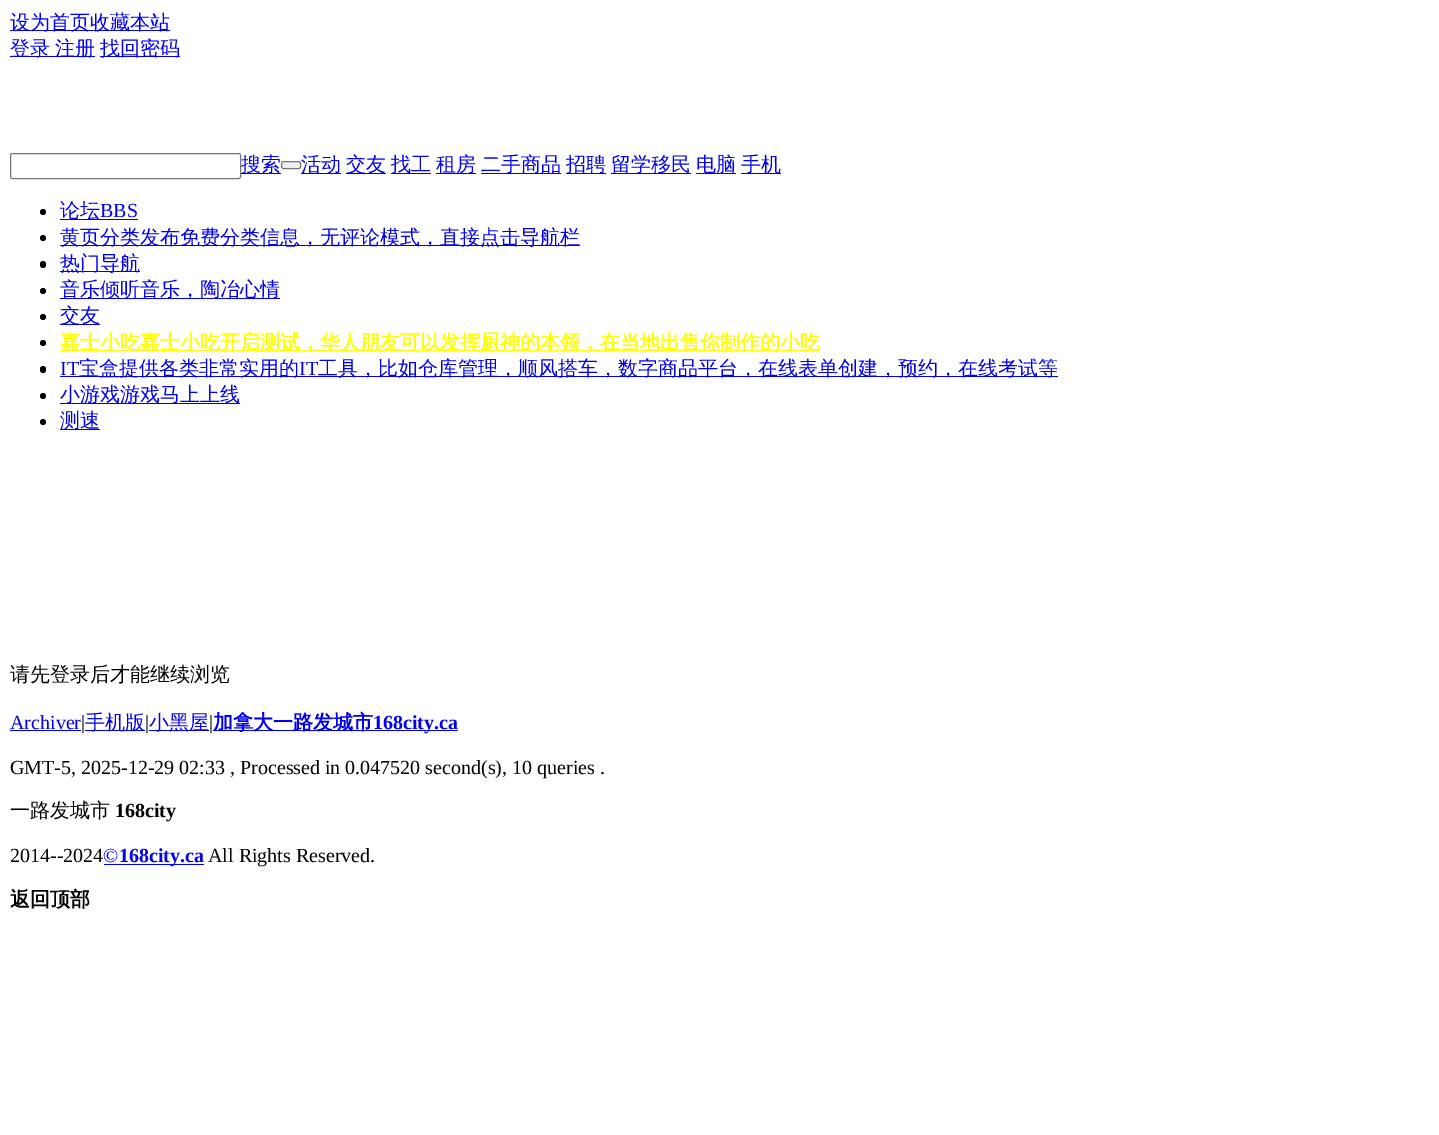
%!PS
<< /PageSize [1439 1135] >> setpagedevice
/rgb { 3 { 255 div 3 1 roll } repeat setrgbcolor } def
/font { [ exch dup neg 0 0 3 -1 roll 0 0 ] selectfont } def
/circle { newpath 0 360 arc closepath } def
/roundrect { 5 dict begin { /r /h /w /y /x } { exch def } forall
  x r add y moveto x w add y 2 copy h add r arct x w add y h add x 1 index r arct
  x y h add x y r arct x y 2 copy exch w add exch r arct closepath end } def
0 1135 translate 1 -1 scale
4 setmiterlimit
255 255 255 rgb
0 0 1439 1135 rectfill
[
  [10 30 160 1 0 0 238]
  [10 56 85 1 0 0 238]
  [100 56 80 1 0 0 238]
] { aload pop rgb rectfill } forall
118 118 118 rgb
10.5 153.5 230 25 2 roundrect stroke
0 0 238 rgb
241 173 40 1 rectfill
239 239 239 rgb
281.5 161.5 19 7 2 roundrect gsave fill grestore
118 118 118 rgb
stroke
[
  [301 173 40 1 0 0 238]
  [346 173 40 1 0 0 238]
  [391 173 40 1 0 0 238]
  [436 173 40 1 0 0 238]
  [481 173 80 1 0 0 238]
  [566 173 40 1 0 0 238]
  [611 173 80 1 0 0 238]
  [696 173 40 1 0 0 238]
  [741 173 40 1 0 0 238]
] { aload pop rgb rectfill } forall
0 0 0 rgb
43 212 3 circle fill
0 0 238 rgb
60 219 78 1 rectfill
0 0 0 rgb
43 238 3 circle fill
0 0 238 rgb
60 245 520 1 rectfill
0 0 0 rgb
40 261 6 7 3 roundrect fill
0 0 238 rgb
60 271 80 1 rectfill
0 0 0 rgb
43 291 3 circle fill
0 0 238 rgb
60 298 220 1 rectfill
0 0 0 rgb
43 317 3 circle fill
0 0 238 rgb
60 324 40 1 rectfill
0 0 0 rgb
43 343 3 circle fill
255 255 0 rgb
60 350 760 1 rectfill
0 0 0 rgb
40 366 6 7 3 roundrect fill
0 0 238 rgb
60 376 998 1 rectfill
0 0 0 rgb
43 396 3 circle fill
0 0 238 rgb
60 403 180 1 rectfill
0 0 0 rgb
43 422 3 circle fill
[
  [60 429 40 1 0 0 238]
  [10 730 71 1 0 0 238]
  [85 730 60 1 0 0 238]
  [149 730 60 1 0 0 238]
  [213 730 245 1 0 0 238]
  [104 864 100 1 0 0 238]
] { aload pop rgb rectfill } forall
/WenQuanYiZenHei-Medium 20 font
[
  [(设为首页收藏本站) 10 29]
  [(登录) 10 55]
  [(注册) 55 55]
  [(找回密码) 100 55]
  [(搜索) 241 171]
  [(活动) 301 171]
  [(交友) 346 171]
  [(找工) 391 171]
  [(租房) 436 171]
  [(二手商品) 481 171]
  [(招聘) 566 171]
  [(留学移民) 611 171]
  [(电脑) 696 171]
  [(手机) 741 171]
  [(论坛) 60 217]
] { aload pop moveto show } forall
/LiberationSerif-Regular 20 font
100 217 moveto (BBS) show
/WenQuanYiZenHei-Medium 20 font
[
  [(黄页分类发布免费分类信息，无评论模式，直接点击导航栏) 60 244]
  [(热门导航) 60 270]
  [(音乐倾听音乐，陶冶心情) 60 296]
  [(交友) 60 322]
] { aload pop moveto show } forall
/WenQuanYiZenHei-Bold 20 font
255 255 0 rgb
60 349 moveto (嘉士小吃嘉士小吃开启测试，华人朋友可以发挥厨神的本领，在当地出售你制作的小吃) show
/LiberationSerif-Regular 20 font
0 0 238 rgb
60 375 moveto (IT) show
/WenQuanYiZenHei-Medium 20 font
79 375 moveto (宝盒提供各类非常实用的) show
/LiberationSerif-Regular 20 font
299 375 moveto (IT) show
/WenQuanYiZenHei-Medium 20 font
[
  [(工具，比如仓库管理，顺风搭车，数字商品平台，在线表单创建，预约，在线考试等) 318 375]
  [(小游戏游戏马上上线) 60 401]
  [(测速) 60 427]
] { aload pop moveto show } forall
0 0 0 rgb
10 681 moveto (请先登录后才能继续浏览) show
/LiberationSerif-Regular 20 font
0 0 238 rgb
10 729 moveto (Archiver) show
0 0 0 rgb
81 729 moveto (|) show
/WenQuanYiZenHei-Medium 20 font
0 0 238 rgb
85 729 moveto (手机版) show
/LiberationSerif-Regular 20 font
0 0 0 rgb
145 729 moveto (|) show
/WenQuanYiZenHei-Medium 20 font
0 0 238 rgb
149 729 moveto (小黑屋) show
/LiberationSerif-Regular 20 font
0 0 0 rgb
209 729 moveto (|) show
/WenQuanYiZenHei-Bold 20 font
0 0 238 rgb
213 729 moveto (加拿大一路发城市) show
/LiberationSerif-Bold 20 font
373 729 moveto (168city.ca) show
/LiberationSerif-Regular 20 font
0 0 0 rgb
10 774 moveto (GMT-5, 2025-12-29 02:33 , Processed in 0.047520 second\(s\), 10 queries .) show
/WenQuanYiZenHei-Medium 20 font
10 817 moveto (一路发城市) show
/LiberationSerif-Bold 20 font
115 817 moveto (168city) show
/LiberationSerif-Regular 20 font
10 862 moveto (2014--2024) show
0 0 238 rgb
103 862 moveto (©) show
/LiberationSerif-Bold 20 font
119 862 moveto (168city.ca) show
/LiberationSerif-Regular 20 font
0 0 0 rgb
208 862 moveto (All Rights Reserved.) show
/WenQuanYiZenHei-Bold 20 font
10 906 moveto (返回顶部) show
showpage
